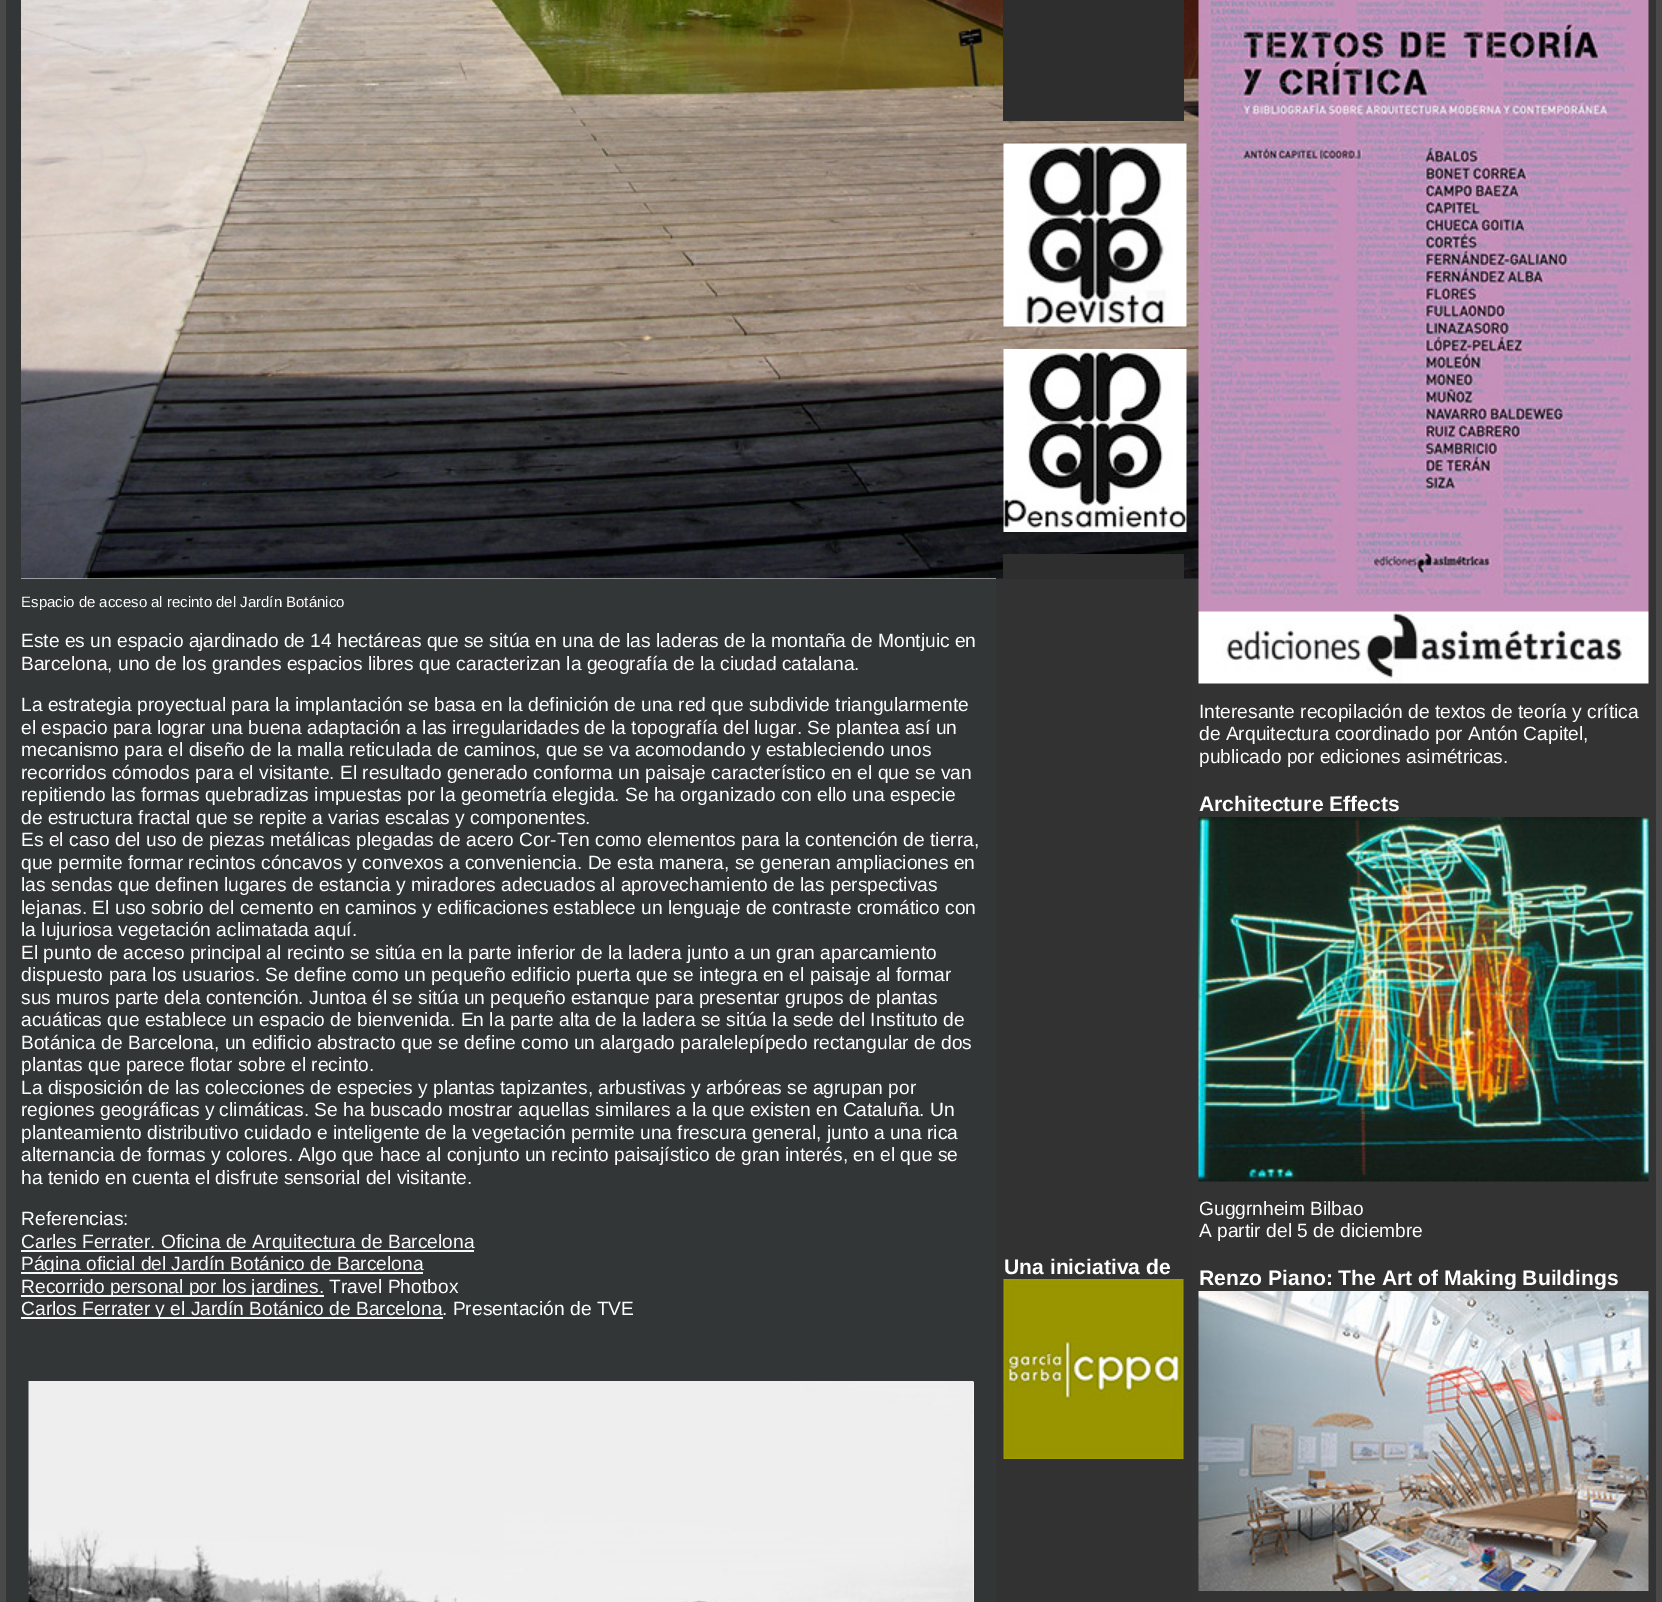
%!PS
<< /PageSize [1662 1602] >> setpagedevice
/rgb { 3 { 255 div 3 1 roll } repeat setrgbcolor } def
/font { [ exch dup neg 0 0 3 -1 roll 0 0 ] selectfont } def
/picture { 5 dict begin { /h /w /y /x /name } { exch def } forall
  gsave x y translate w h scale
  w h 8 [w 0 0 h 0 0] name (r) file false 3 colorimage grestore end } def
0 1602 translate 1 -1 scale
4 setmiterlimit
73 73 73 rgb
0 0 1662 1602 rectfill
[
  [6 0 990 1602 51 54 54]
  [21 578 975 1 255 255 255]
  [996 578 195 1024 50 50 50]
  [1191 0 465 1602 51 51 51]
] { aload pop rgb rectfill } forall
(img/1.rgb) 21 0 1178 579 picture
[
  [21 1250 453 2 249 249 249]
  [21 1272 402 2 249 249 249]
  [21 1295 303 2 249 249 249]
  [21 1317 422 2 249 249 249]
  [973 1382 1 220 255 255 255]
] { aload pop rgb rectfill } forall
(img/2.rgb) 28 1381 946 221 picture
46 46 46 rgb
1003 0 181 121 rectfill
(img/3.rgb) 1003 143 184 184 picture
(img/4.rgb) 1003 349 184 183 picture
1003 554 181 25 rectfill
(img/5.rgb) 1003 1279 181 180 picture
(img/6.rgb) 1198 0 451 684 picture
(img/7.rgb) 1198 817 451 365 picture
(img/8.rgb) 1198 1291 451 300 picture
/LiberationSans-Regular 15 font
255 255 255 rgb
21 607 moveto (Espacio de acceso al recinto del Jardín Botánico) show
/LiberationSans-Regular 19.2 font
[
  [(Este es un espacio ajardinado de 14 hectáreas que se sitúa en una de las laderas de la montaña de Montjuic en) 21 647]
  [(Barcelona, uno de los grandes espacios libres que caracterizan la geografía de la ciudad catalana.) 21 670]
  [(La estrategia proyectual para la implantación se basa en la definición de una red que subdivide triangularmente) 21 711]
  [(el espacio para lograr una buena adaptación a las irregularidades de la topografía del lugar. Se plantea así un) 21 734]
  [(mecanismo para el diseño de la malla reticulada de caminos, que se va acomodando y estableciendo unos) 21 756]
  [(recorridos cómodos para el visitante. El resultado generado conforma un paisaje característico en el que se van) 21 779]
  [(repitiendo las formas quebradizas impuestas por la geometría elegida. Se ha organizado con ello una especie) 21 801]
  [(de estructura fractal que se repite a varias escalas y componentes.) 21 824]
  [(Es el caso del uso de piezas metálicas plegadas de acero Cor-Ten como elementos para la contención de tierra,) 21 846]
  [(que permite formar recintos cóncavos y convexos a conveniencia. De esta manera, se generan ampliaciones en) 21 869]
  [(las sendas que definen lugares de estancia y miradores adecuados al aprovechamiento de las perspectivas) 21 891]
  [(lejanas. El uso sobrio del cemento en caminos y edificaciones establece un lenguaje de contraste cromático con) 21 914]
  [(la lujuriosa vegetación aclimatada aquí.) 21 936]
  [(El punto de acceso principal al recinto se sitúa en la parte inferior de la ladera junto a un gran aparcamiento) 21 959]
  [(dispuesto para los usuarios. Se define como un pequeño edificio puerta que se integra en el paisaje al formar) 21 981]
  [(sus muros parte dela contención. Juntoa él se sitúa un pequeño estanque para presentar grupos de plantas) 21 1004]
  [(acuáticas que establece un espacio de bienvenida. En la parte alta de la ladera se sitúa la sede del Instituto de) 21 1026]
  [(Botánica de Barcelona, un edificio abstracto que se define como un alargado paralelepípedo rectangular de dos) 21 1049]
  [(plantas que parece flotar sobre el recinto.) 21 1071]
  [(La disposición de las colecciones de especies y plantas tapizantes, arbustivas y arbóreas se agrupan por) 21 1094]
  [(regiones geográficas y climáticas. Se ha buscado mostrar aquellas similares a la que existen en Cataluña. Un) 21 1116]
  [(planteamiento distributivo cuidado e inteligente de la vegetación permite una frescura general, junto a una rica) 21 1139]
  [(alternancia de formas y colores. Algo que hace al conjunto un recinto paisajístico de gran interés, en el que se) 21 1161]
  [(ha tenido en cuenta el disfrute sensorial del visitante.) 21 1184]
  [(Referencias:) 21 1225]
] { aload pop moveto show } forall
249 249 249 rgb
[
  [(Carles Ferrater. Oficina de Arquitectura de Barcelona) 21 1248]
  [(Página oficial del Jardín Botánico de Barcelona) 21 1270]
  [(Recorrido personal por los jardines.) 21 1293]
] { aload pop moveto show } forall
255 255 255 rgb
329 1293 moveto (Travel Photbox) show
249 249 249 rgb
21 1315 moveto (Carlos Ferrater y el Jardín Botánico de Barcelona) show
255 255 255 rgb
442 1315 moveto (. Presentación de TVE) show
/LiberationSans-Bold 21.1 font
1004 1274 moveto (Una iniciativa de) show
/LiberationSans-Regular 19.2 font
[
  [(Interesante recopilación de textos de teoría y crítica) 1199 718]
  [(de Arquitectura coordinado por Antón Capitel,) 1199 740]
  [(publicado por ediciones asimétricas.) 1199 763]
] { aload pop moveto show } forall
/LiberationSans-Bold 21.1 font
1199 811 moveto (Architecture Effects) show
/LiberationSans-Regular 19.2 font
1199 1215 moveto (Guggrnheim Bilbao) show
1199 1237 moveto (A partir del 5 de diciembre) show
/LiberationSans-Bold 21.1 font
1199 1285 moveto (Renzo Piano: The Art of Making Buildings) show
showpage
